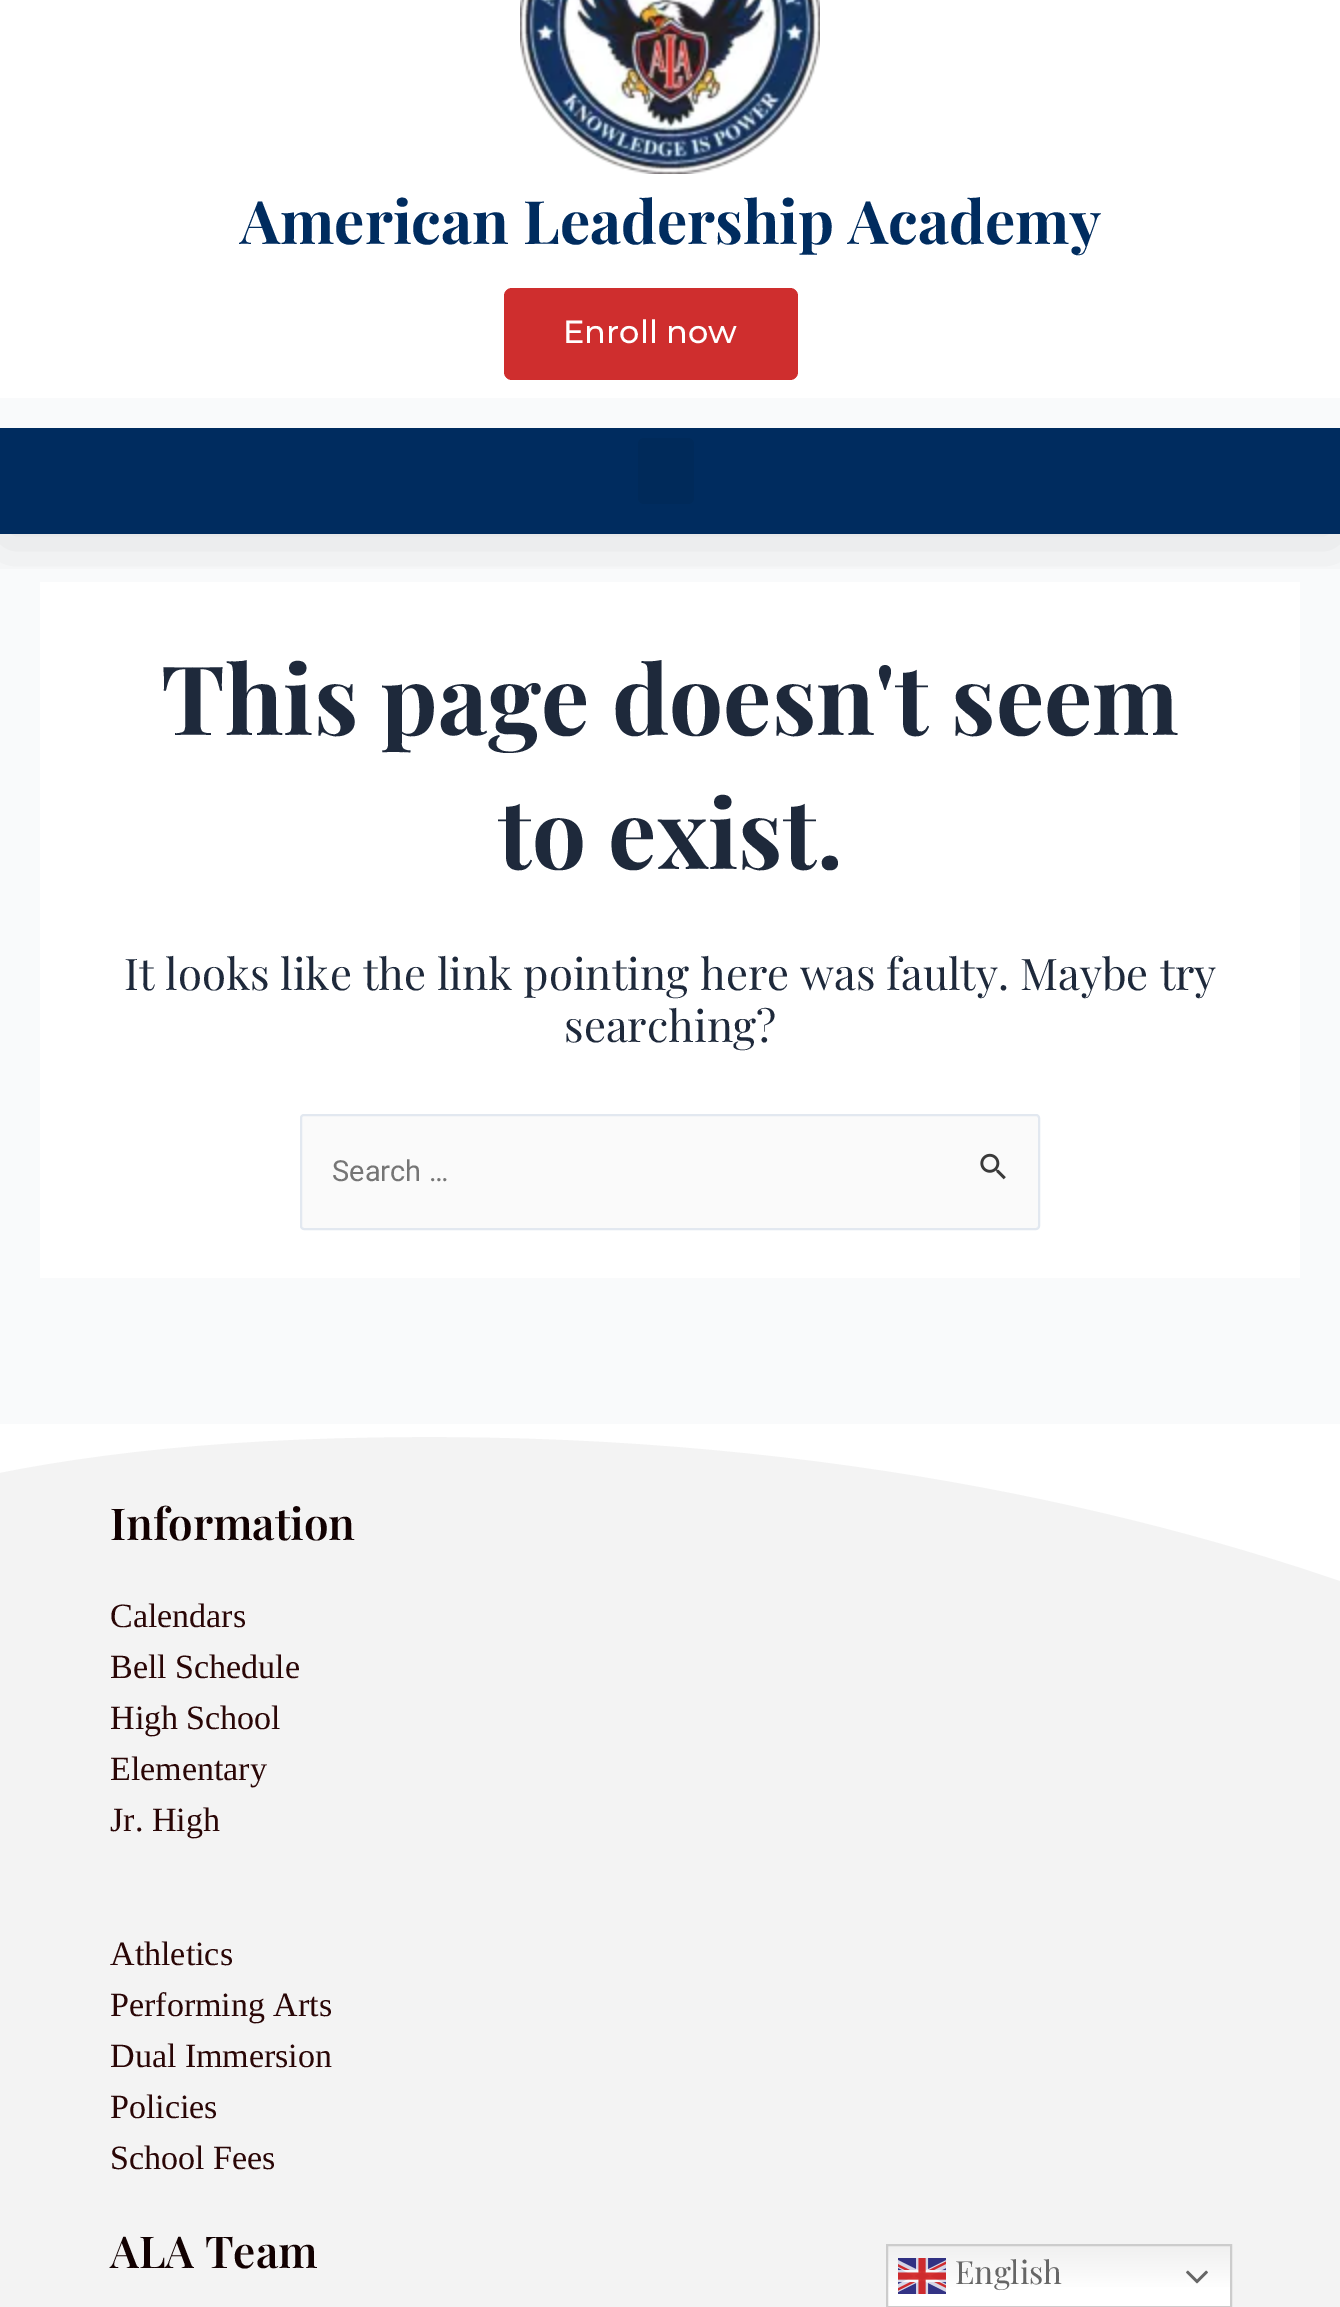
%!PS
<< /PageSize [1340 2307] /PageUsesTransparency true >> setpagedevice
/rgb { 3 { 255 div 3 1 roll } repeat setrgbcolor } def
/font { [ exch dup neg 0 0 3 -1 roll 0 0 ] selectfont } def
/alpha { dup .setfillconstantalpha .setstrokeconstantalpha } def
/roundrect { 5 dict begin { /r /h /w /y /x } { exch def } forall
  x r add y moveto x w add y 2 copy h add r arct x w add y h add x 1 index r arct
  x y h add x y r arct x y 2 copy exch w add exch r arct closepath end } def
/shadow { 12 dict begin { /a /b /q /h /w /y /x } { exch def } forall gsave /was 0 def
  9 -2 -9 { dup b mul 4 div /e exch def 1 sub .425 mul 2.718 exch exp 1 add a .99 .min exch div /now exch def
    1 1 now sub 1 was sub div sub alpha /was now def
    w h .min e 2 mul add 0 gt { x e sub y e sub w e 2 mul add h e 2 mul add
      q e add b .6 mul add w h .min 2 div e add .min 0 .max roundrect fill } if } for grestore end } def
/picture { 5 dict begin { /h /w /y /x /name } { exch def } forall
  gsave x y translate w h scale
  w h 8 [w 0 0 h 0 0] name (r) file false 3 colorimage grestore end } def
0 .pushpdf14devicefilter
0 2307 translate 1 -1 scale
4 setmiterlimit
249 250 251 rgb
0 0 1340 2307 rectfill
255 255 255 rgb
40 582 1260 696 rectfill
gsave
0 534 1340 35 rectclip
0 0 0 rgb
0 -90 1340 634 0 30 0.1 shadow
grestore
0 0 1340 398 rectfill
(img/1.rgb) 520 0 300 174 picture
207 46 46 rgb
504 288 294 92 8 roundrect fill
0 44 95 rgb
0 428 1340 106 rectfill
0 42 90 rgb
638 438 56 66 6 roundrect fill
250 250 250 rgb
301 1115 738 114 3 roundrect gsave fill grestore
226 232 240 rgb
2 setlinewidth
stroke
(img/2.rgb) 980 1153 26 27 picture
243 243 243 rgb
0 1437 1340 870 rectfill
gsave
0 1424 1340 420 rectclip
255 255 255 rgb
412 1437 moveto 1252 1432 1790 1764 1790 1843 curveto 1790 1423 lineto -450 1423 lineto -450 1843 lineto -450 1762 -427 1440 412 1437 curveto closepath fill
grestore
gsave 888 2246 moveto 1230 2246 lineto 1230 2306 lineto 888 2306 lineto closepath clip newpath
<< /ShadingType 2 /ColorSpace /DeviceRGB /Coords [1059 2244 1059 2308] /Extend [true true] /Function << /FunctionType 3 /Domain [0 1] /Functions [<< /FunctionType 2 /Domain [0 1] /C0 [0.937 0.937 0.937] /C1 [1 1 1] /N 1 >> << /FunctionType 2 /Domain [0 1] /C0 [1 1 1] /C1 [1 1 1] /N 1 >>] /Bounds [0.7] /Encode [0 1 0 1] >> >> shfill grestore
204 204 204 rgb
887 2245 344 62 rectstroke
(img/3.rgb) 898 2258 48 36 picture
(img/4.rgb) 1186 2270 22 14 picture
/PlayfairDisplay-Bold 60 font
0 44 95 rgb
240 244 moveto (American Leadership Academy) show
/Montserrat-Medium 32 font
255 255 255 rgb
563 343 moveto (Enroll now) show
/PlayfairDisplay-Bold 96 font
30 41 59 rgb
161 735 moveto (This page doesn't seem) show
498 869 moveto (to exist.) show
/PlayfairDisplay-Regular 43.75 font
124 990 moveto (It looks like the link pointing here was faulty. Maybe try) show
564 1042 moveto (searching?) show
/Roboto-Regular 29 font
117 117 117 rgb
332 1181 moveto (Search …) show
/PlayfairDisplay-SemiBold 44 font
18 1 1 rgb
110 1540 moveto (Information) show
/LiberationSerif-Regular 34 font
42 6 6 rgb
[
  [(Calendars) 110 1627]
  [(Bell Schedule) 110 1678]
  [(High School) 110 1729]
  [(Elementary) 110 1780]
  [(Jr. High) 110 1831]
  [(Athletics) 110 1965]
  [(Performing Arts) 110 2016]
  [(Dual Immersion) 110 2067]
  [(Policies) 110 2118]
  [(School Fees) 110 2169]
] { aload pop moveto show } forall
/PlayfairDisplay-SemiBold 44 font
18 1 1 rgb
110 2268 moveto (ALA Team) show
/PlayfairDisplay-Regular 32 font
102 102 102 rgb
955 2284 moveto (English) show
.poppdf14devicefilter showpage
